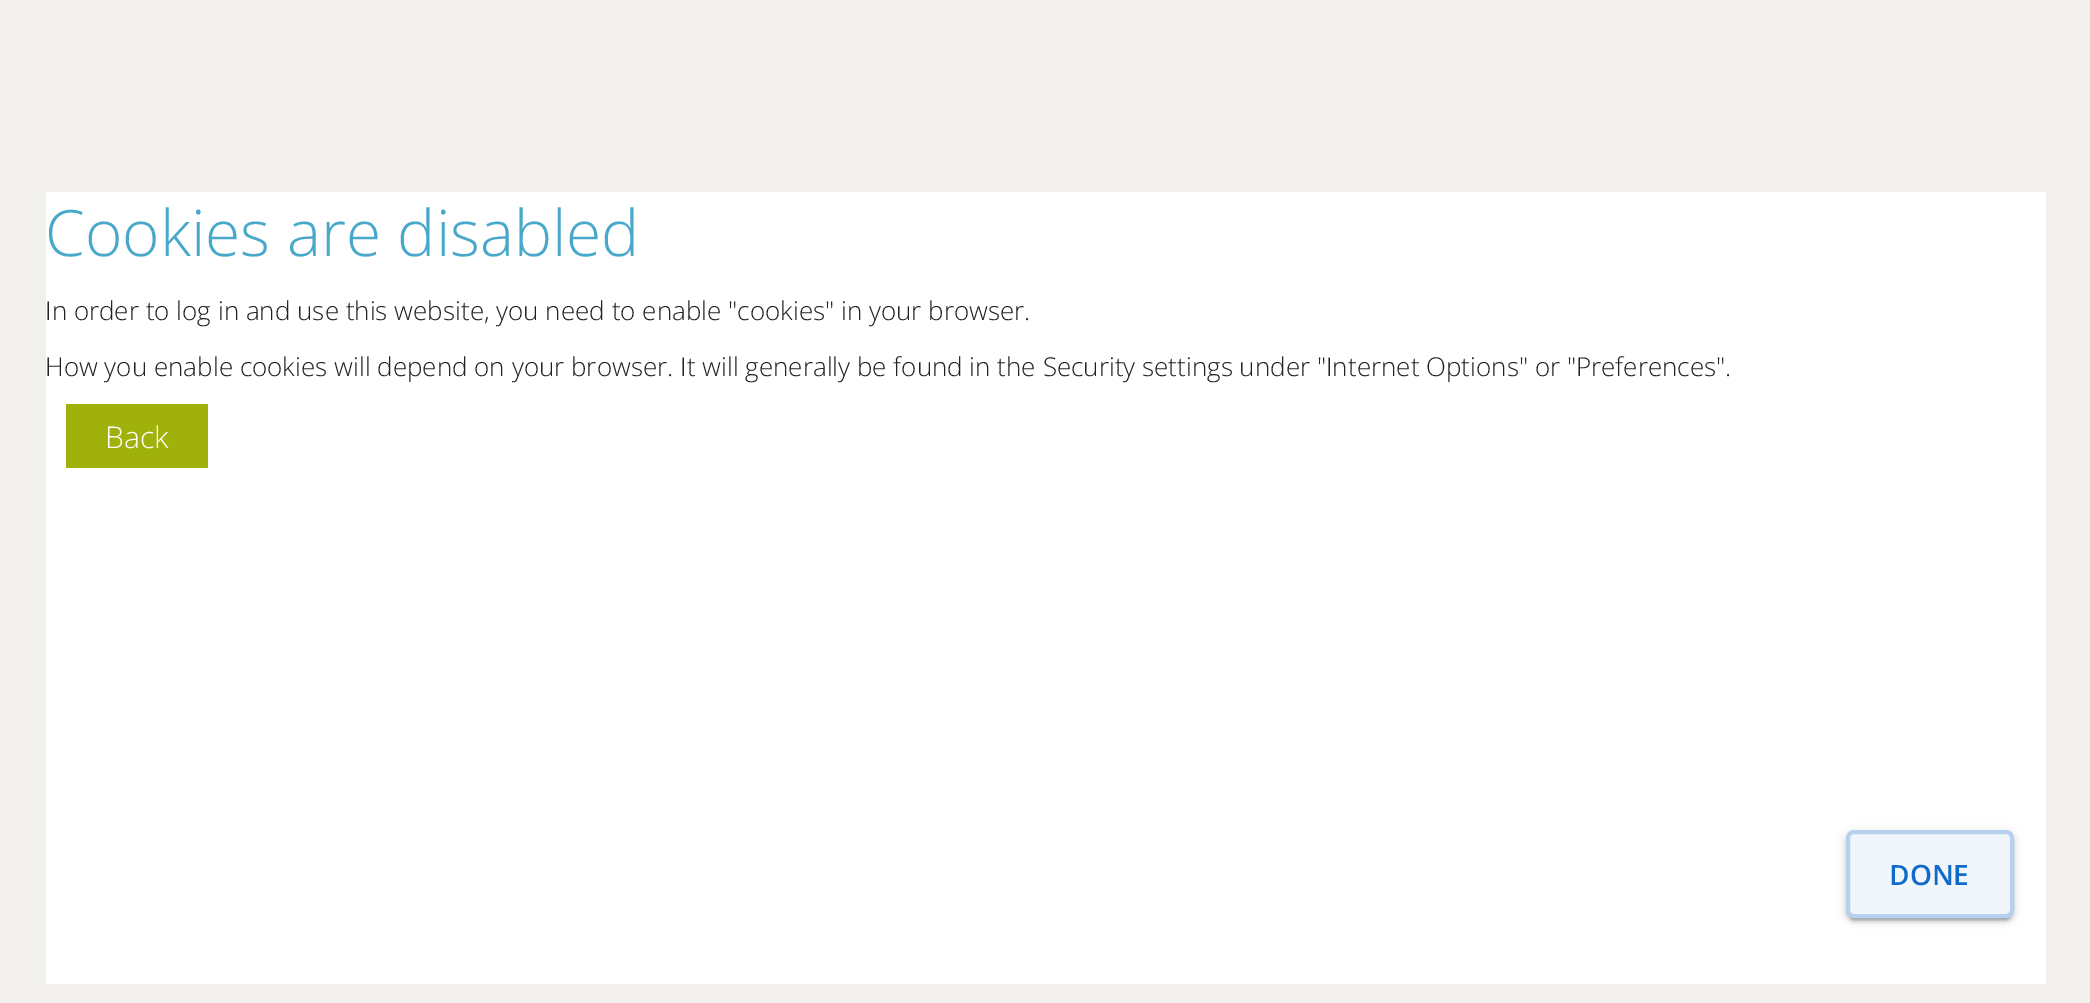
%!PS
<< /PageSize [2090 1003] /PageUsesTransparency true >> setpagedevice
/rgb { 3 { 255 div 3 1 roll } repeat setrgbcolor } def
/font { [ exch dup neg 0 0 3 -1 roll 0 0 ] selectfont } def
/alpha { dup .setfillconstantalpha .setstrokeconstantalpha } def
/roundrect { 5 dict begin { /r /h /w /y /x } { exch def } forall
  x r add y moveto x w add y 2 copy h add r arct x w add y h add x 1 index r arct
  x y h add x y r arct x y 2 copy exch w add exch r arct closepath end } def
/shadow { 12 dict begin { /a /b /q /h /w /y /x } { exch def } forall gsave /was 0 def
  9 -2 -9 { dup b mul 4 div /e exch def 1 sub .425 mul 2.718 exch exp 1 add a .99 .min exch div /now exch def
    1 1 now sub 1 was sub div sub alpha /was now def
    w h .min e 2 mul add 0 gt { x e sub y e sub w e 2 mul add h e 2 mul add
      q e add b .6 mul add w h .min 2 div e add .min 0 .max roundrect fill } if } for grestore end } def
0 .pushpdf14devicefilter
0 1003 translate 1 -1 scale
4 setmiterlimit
242 240 236 rgb
0 0 2090 1003 rectfill
255 255 255 rgb
46 192 2000 792 rectfill
161 177 11 rgb
66 404 142 64 rectfill
0 0 0 rgb
1846 832 168 88 8 5 0.12 shadow
1846 834 168 88 8 2 0.14 shadow
1850 840 160 80 4 1 0.2 shadow
240 246 252 rgb
1848 832 164 84 6 roundrect gsave fill grestore
181 209 238 rgb
4 setlinewidth
stroke
/OpenSans-Light 64 font
72 168 202 rgb
45 256 moveto (Cookies are disabled) show
/OpenSans-Light 26 font
34 34 34 rgb
45 320 moveto (In order to log in and use this website, you need to enable "cookies" in your browser.) show
45 376 moveto (How you enable cookies will depend on your browser. It will generally be found in the Security settings under "Internet Options" or "Preferences".) show
/OpenSans-Light 30 font
255 255 255 rgb
105 448 moveto (Back) show
/OpenSans-SemiBold 28 font
15 106 200 rgb
1889 885 moveto (DONE) show
.poppdf14devicefilter showpage
